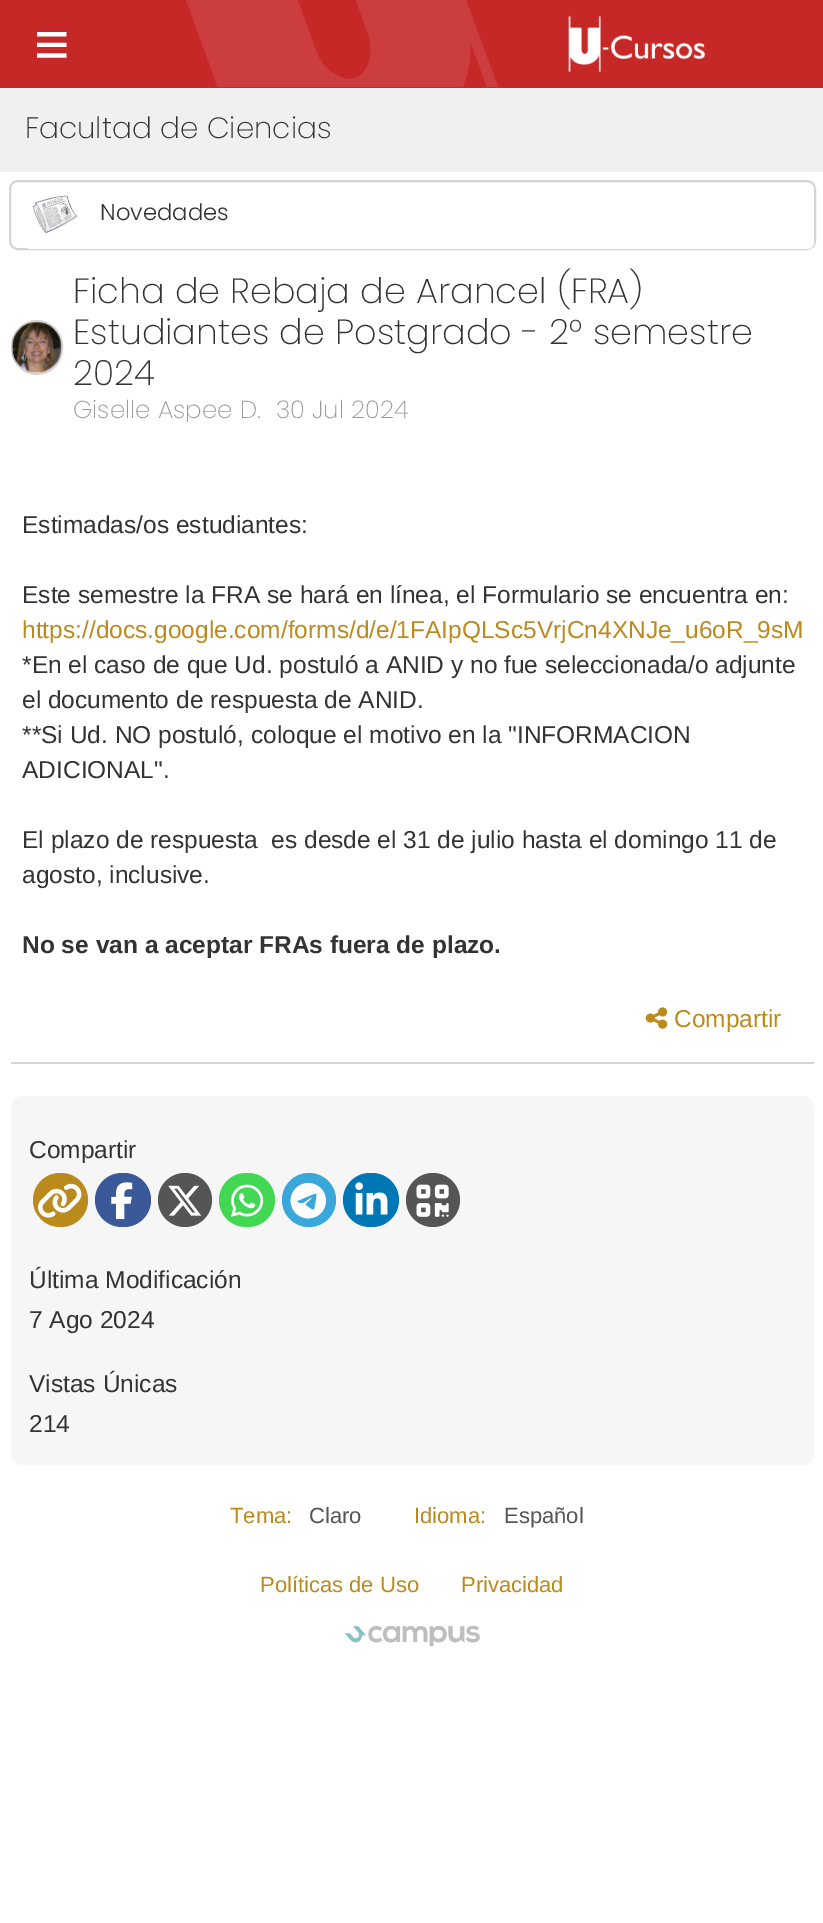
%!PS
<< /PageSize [823 1923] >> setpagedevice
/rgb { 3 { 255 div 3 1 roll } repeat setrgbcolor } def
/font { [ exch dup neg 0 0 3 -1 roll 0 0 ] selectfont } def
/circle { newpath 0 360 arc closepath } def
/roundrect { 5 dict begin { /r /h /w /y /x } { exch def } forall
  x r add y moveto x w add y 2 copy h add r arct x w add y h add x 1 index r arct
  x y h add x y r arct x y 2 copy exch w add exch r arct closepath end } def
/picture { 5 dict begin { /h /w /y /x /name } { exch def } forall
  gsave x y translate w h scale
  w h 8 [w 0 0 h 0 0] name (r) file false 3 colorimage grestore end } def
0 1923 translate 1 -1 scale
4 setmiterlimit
255 255 255 rgb
0 0 823 1923 rectfill
198 40 40 rgb
0 0 823 88 rectfill
(img/1.rgb) 186 0 312 87 picture
(img/2.rgb) 568 15 138 57 picture
240 240 240 rgb
0 88 823 84 rectfill
213 213 213 rgb
2 setlinewidth
10 181 805 68 8 roundrect stroke
gsave
11 182 803 67 7 roundrect clip newpath
255 255 255 rgb
37 187 moveto 814 187 lineto 814 242 lineto 814 246 811 249 807 249 curveto 28 249 lineto 28 196 lineto 28 191 32 187 37 187 curveto closepath fill
grestore
(img/3.rgb) 32 195 46 38 picture
12 321 50 53 25 roundrect stroke
(img/4.rgb) 11 321 51 53 picture
11 1062 803 2 rectfill
(img/5.rgb) 645 1007 23 22 picture
246 246 246 rgb
11 1096 803 369 12 roundrect fill
187 138 29 rgb
33 1173 55 54 27 roundrect fill
(img/6.rgb) 38 1183 44 35 picture
59 89 152 rgb
95 1173 56 54 27 roundrect fill
(img/7.rgb) 111 1182 22 38 picture
85 85 85 rgb
185 1200 27 circle fill
(img/8.rgb) 168 1185 34 31 picture
67 216 84 rgb
219 1173 56 54 27 roundrect fill
(img/9.rgb) 231 1184 33 33 picture
57 167 218 rgb
309 1200 27 circle fill
(img/10.rgb) 290 1182 37 37 picture
0 119 181 rgb
343 1173 56 54 27 roundrect fill
(img/11.rgb) 355 1182 33 33 picture
85 85 85 rgb
433 1200 27 circle fill
(img/12.rgb) 416 1184 33 33 picture
(img/13.rgb) 345 1626 135 21 picture
/LiberationSans-Regular 61 font
255 255 255 rgb
34 65 moveto (≡) show
/Poppins-ExtraLight 29.4 font
51 51 51 rgb
25 138 moveto (Facultad de Ciencias) show
/Poppins-Light 22.75 font
100 220 moveto (Novedades) show
/Poppins-ExtraLight 35 font
[
  [(Ficha de Rebaja de Arancel \(FRA\)) 73 303]
  [(Estudiantes de Postgrado - 2° semestre) 73 344]
  [(2024) 73 385]
] { aload pop moveto show } forall
gsave
11 268 803 154 rectclip
/Poppins-ExtraLight 24.5 font
153 153 153 rgb
73 418 moveto (Giselle Aspee D.) show
grestore
/Poppins-ExtraLight 24.5 font
153 153 153 rgb
276 418 moveto (30 Jul 2024) show
/LiberationSans-Regular 24.5 font
51 51 51 rgb
22 533 moveto (Estimadas/os estudiantes:) show
22 603 moveto (Este semestre la FRA se hará en línea, el Formulario se encuentra en:) show
187 138 29 rgb
22 638 moveto (https://docs.google.com/forms/d/e/1FAIpQLSc5VrjCn4XNJe_u6oR_9sM) show
51 51 51 rgb
[
  [(*En el caso de que Ud. postuló a ANID y no fue seleccionada/o adjunte) 22 673]
  [(el documento de respuesta de ANID.) 22 708]
  [(**Si Ud. NO postuló, coloque el motivo en la "INFORMACION) 22 743]
  [(ADICIONAL".) 22 778]
  [(El plazo de respuesta  es desde el 31 de julio hasta el domingo 11 de) 22 848]
  [(agosto, inclusive.) 22 883]
] { aload pop moveto show } forall
/LiberationSans-Bold 24.5 font
22 953 moveto (No se van a aceptar FRAs fuera de plazo.) show
/LiberationSans-Regular 24.5 font
187 138 29 rgb
674 1027 moveto (Compartir) show
51 51 51 rgb
[
  [(Compartir) 29 1158]
  [(Última Modificación) 29 1288]
  [(7 Ago 2024) 29 1328]
  [(Vistas Únicas) 29 1392]
  [(214) 29 1432]
] { aload pop moveto show } forall
/LiberationSans-Regular 22 font
187 138 29 rgb
230 1523 moveto (Tema:) show
85 85 85 rgb
309 1523 moveto (Claro) show
187 138 29 rgb
414 1523 moveto (Idioma:) show
85 85 85 rgb
504 1523 moveto (Español) show
187 138 29 rgb
260 1592 moveto (Políticas de Uso) show
461 1592 moveto (Privacidad) show
showpage
